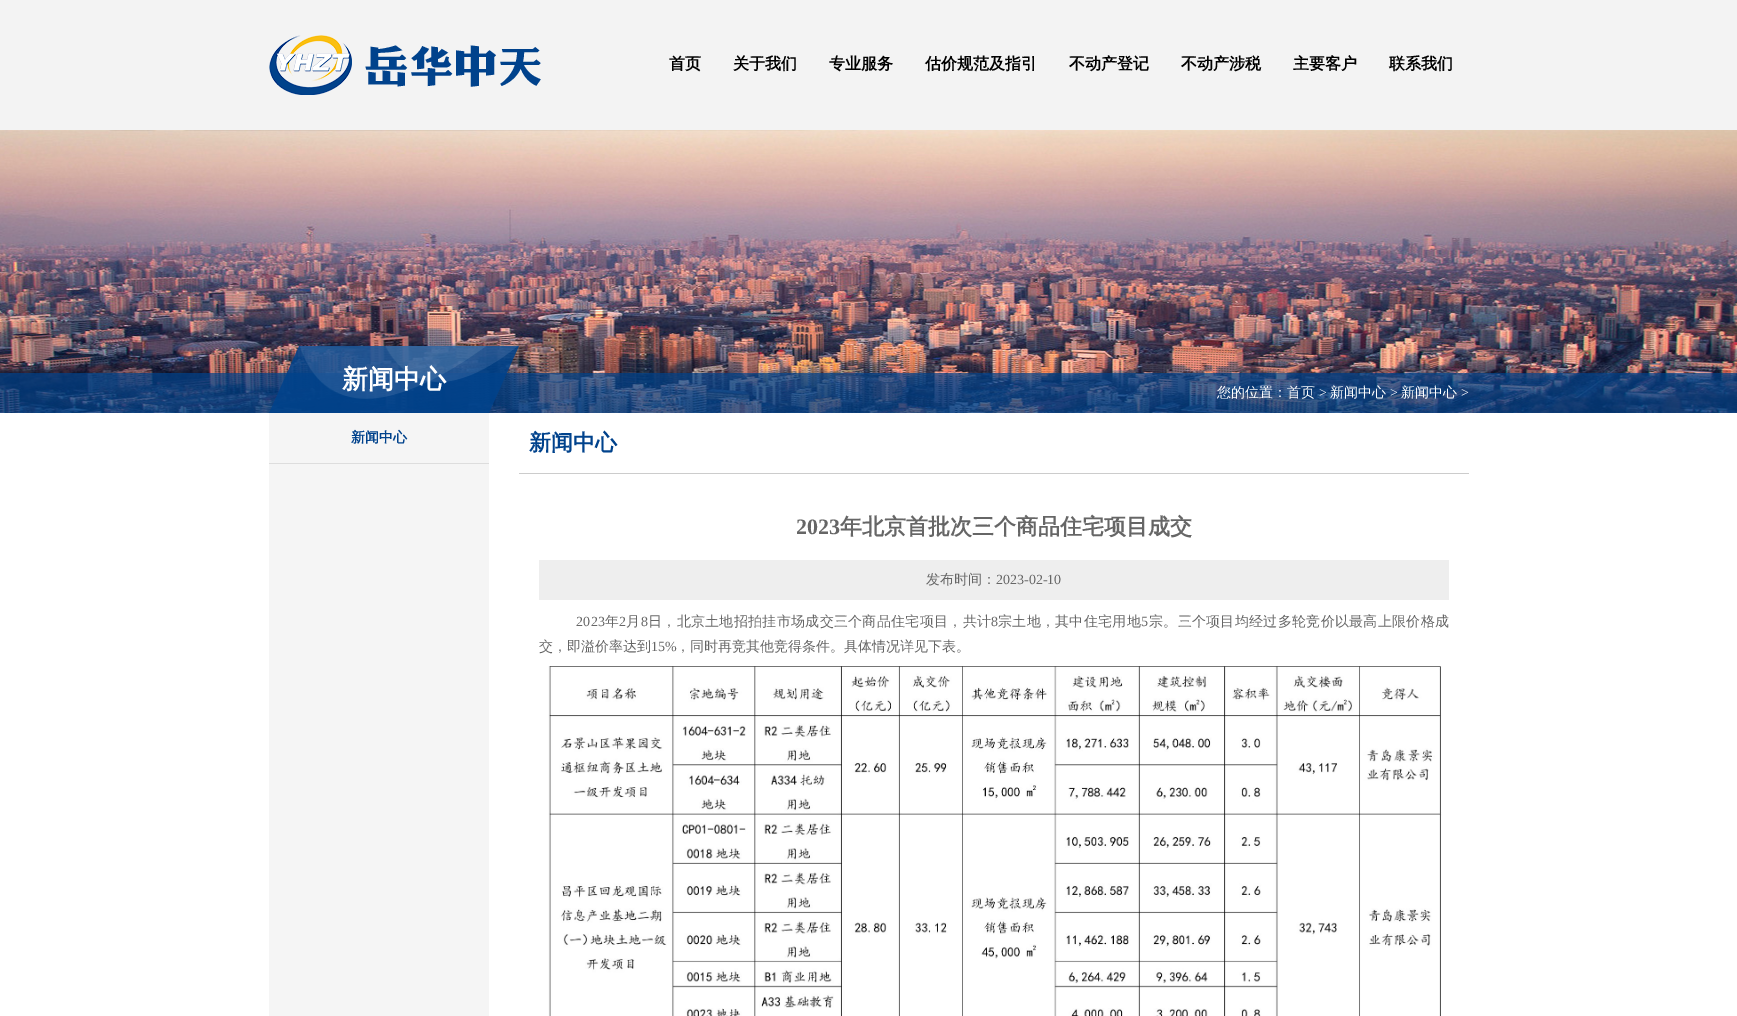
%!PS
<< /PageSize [1737 1016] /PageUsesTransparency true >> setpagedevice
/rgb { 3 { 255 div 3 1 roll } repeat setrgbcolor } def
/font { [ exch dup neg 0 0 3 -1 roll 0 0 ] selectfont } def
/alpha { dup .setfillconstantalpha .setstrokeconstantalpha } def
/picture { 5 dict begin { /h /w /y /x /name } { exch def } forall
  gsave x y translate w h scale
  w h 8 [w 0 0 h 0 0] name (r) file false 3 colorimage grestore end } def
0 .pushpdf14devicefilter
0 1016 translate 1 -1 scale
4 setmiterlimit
255 255 255 rgb
0 0 1737 1016 rectfill
243 243 243 rgb
0 0 1737 130 rectfill
(img/1.rgb) 269 35 272 60 picture
(img/2.rgb) 0 130 1737 283 picture
0.7 alpha
0 66 139 rgb
0 373 1737 40 rectfill
1 alpha
(img/3.rgb) 269 346 250 67 picture
[
  [269 413 220 603 245 245 245]
  [269 463 220 1 221 221 221]
  [519 473 950 1 204 204 204]
  [539 560 910 40 238 238 238]
] { aload pop rgb rectfill } forall
(img/4.rgb) 548 666 894 350 picture
/WenQuanYiZenHei-Bold 16 font
0 0 0 rgb
[
  [(首页) 669 69]
  [(关于我们) 733 69]
  [(专业服务) 829 69]
  [(估价规范及指引) 925 69]
  [(不动产登记) 1069 69]
  [(不动产涉税) 1181 69]
  [(主要客户) 1293 69]
  [(联系我们) 1389 69]
] { aload pop moveto show } forall
/WenQuanYiZenHei-Bold 26 font
255 255 255 rgb
342 388 moveto (新闻中心) show
/WenQuanYiZenHei-Medium 14 font
1217 397 moveto (您的位置：首页) show
/LiberationSerif-Regular 14 font
1319 397 moveto (>) show
/WenQuanYiZenHei-Medium 14 font
1330 397 moveto (新闻中心) show
/LiberationSerif-Regular 14 font
1390 397 moveto (>) show
/WenQuanYiZenHei-Medium 14 font
1401 397 moveto (新闻中心) show
/LiberationSerif-Regular 14 font
1461 397 moveto (>) show
/WenQuanYiZenHei-Bold 14 font
0 66 140 rgb
351 442 moveto (新闻中心) show
/WenQuanYiZenHei-Bold 22 font
529 450 moveto (新闻中心) show
/LiberationSerif-Bold 22 font
102 102 102 rgb
796 534 moveto (2023) show
/WenQuanYiZenHei-Bold 22 font
840 534 moveto (年北京首批次三个商品住宅项目成交) show
/WenQuanYiZenHei-Medium 14 font
926 584 moveto (发布时间：) show
/LiberationSerif-Regular 14 font
996 584 moveto (2023-02-10) show
576 626 moveto 0.3 0 (2023) ashow
/WenQuanYiZenHei-Medium 14 font
605 626 moveto 0.3 0 (年) ashow
/LiberationSerif-Regular 14 font
619 626 moveto 0.3 0 (2) ashow
/WenQuanYiZenHei-Medium 14 font
626 626 moveto 0.3 0 (月) ashow
/LiberationSerif-Regular 14 font
641 626 moveto 0.3 0 (8) ashow
/WenQuanYiZenHei-Medium 14 font
648 626 moveto 0.3 0 (日，北京土地招拍挂市场成交三个商品住宅项目，共计) ashow
/LiberationSerif-Regular 14 font
991 626 moveto 0.3 0 (8) ashow
/WenQuanYiZenHei-Medium 14 font
998 626 moveto 0.3 0 (宗土地，其中住宅用地) ashow
/LiberationSerif-Regular 14 font
1141 626 moveto 0.3 0 (5) ashow
/WenQuanYiZenHei-Medium 14 font
1149 626 moveto 0.3 0 (宗。三个项目均经过多轮竞价以最高上限价格成) ashow
539 651 moveto (交，即溢价率达到) show
/LiberationSerif-Regular 14 font
651 651 moveto (15%) show
/WenQuanYiZenHei-Medium 14 font
676 651 moveto (，同时再竞其他竞得条件。具体情况详见下表。) show
.poppdf14devicefilter showpage
